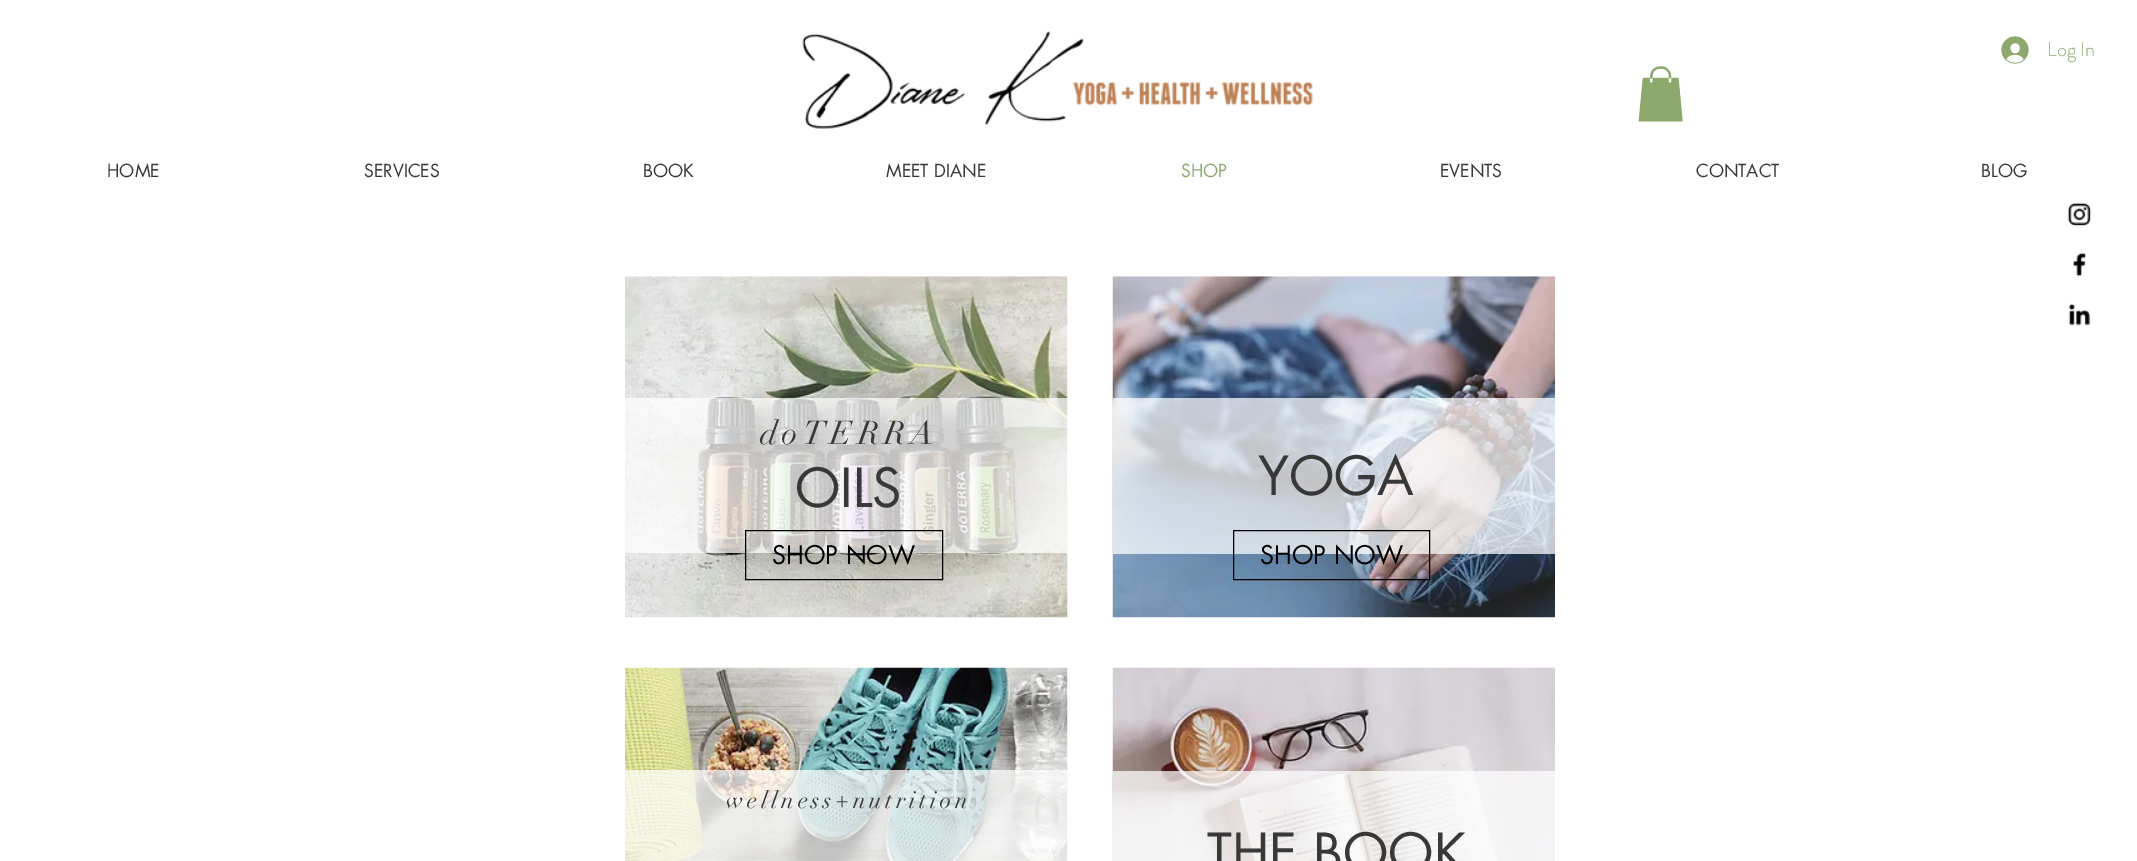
%!PS
<< /PageSize [2137 861] /PageUsesTransparency true >> setpagedevice
/rgb { 3 { 255 div 3 1 roll } repeat setrgbcolor } def
/font { [ exch dup neg 0 0 3 -1 roll 0 0 ] selectfont } def
/alpha { dup .setfillconstantalpha .setstrokeconstantalpha } def
/picture { 5 dict begin { /h /w /y /x /name } { exch def } forall
  gsave x y translate w h scale
  w h 8 [w 0 0 h 0 0] name (r) file false 3 colorimage grestore end } def
0 .pushpdf14devicefilter
0 861 translate 1 -1 scale
4 setmiterlimit
255 255 255 rgb
0 0 2137 861 rectfill
(img/1.rgb) 2001 36 28 28 picture
(img/2.rgb) 802 31 511 98 picture
(img/3.rgb) 1638 66 45 56 picture
(img/4.rgb) 2067 202 25 25 picture
(img/5.rgb) 2072 252 15 25 picture
(img/6.rgb) 2068 303 23 23 picture
(img/7.rgb) 625 276 443 342 picture
(img/8.rgb) 1112 276 443 342 picture
0.73 alpha
625 398 443 155 rectfill
1113 398 442 156 rectfill
1 alpha
0 0 0 rgb
745.5 530.5 197 49 rectstroke
1233.5 530.5 196 49 rectstroke
(img/9.rgb) 625 667 443 194 picture
(img/10.rgb) 1112 667 443 194 picture
0.73 alpha
255 255 255 rgb
625 770 443 91 rectfill
1113 771 442 90 rectfill
/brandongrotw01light-Light 20 font
1 alpha
141 168 109 rgb
2047 56 moveto (Log In) show
/futura-Regular 17.5 font
56 56 56 rgb
[
  [(HOME) 107 177]
  [(SERVICES) 364 177]
  [(BOOK) 643 177]
  [(MEET DIANE) 886 177]
] { aload pop moveto show } forall
141 168 109 rgb
1181 177 moveto (SHOP) show
56 56 56 rgb
[
  [(EVENTS) 1440 177]
  [(CONTACT) 1696 177]
  [(BLOG) 1981 177]
] { aload pop moveto show } forall
/didot-Regular 32.5 font
760 444 moveto 5 0 (doTERRA) ashow
/futura-Regular 52.5 font
795 507 moveto (OILS) show
1258 495 moveto (YOGA) show
/futura-Regular 25 font
0 0 0 rgb
772 564 moveto (SHOP NOW) show
1260 564 moveto (SHOP NOW) show
/didot-Regular 23.75 font
56 56 56 rgb
726 808 moveto 3.6 0 (wellness+nutrition) ashow
/futura-Regular 52.5 font
1207 872 moveto (THE BOOK) show
.poppdf14devicefilter showpage
